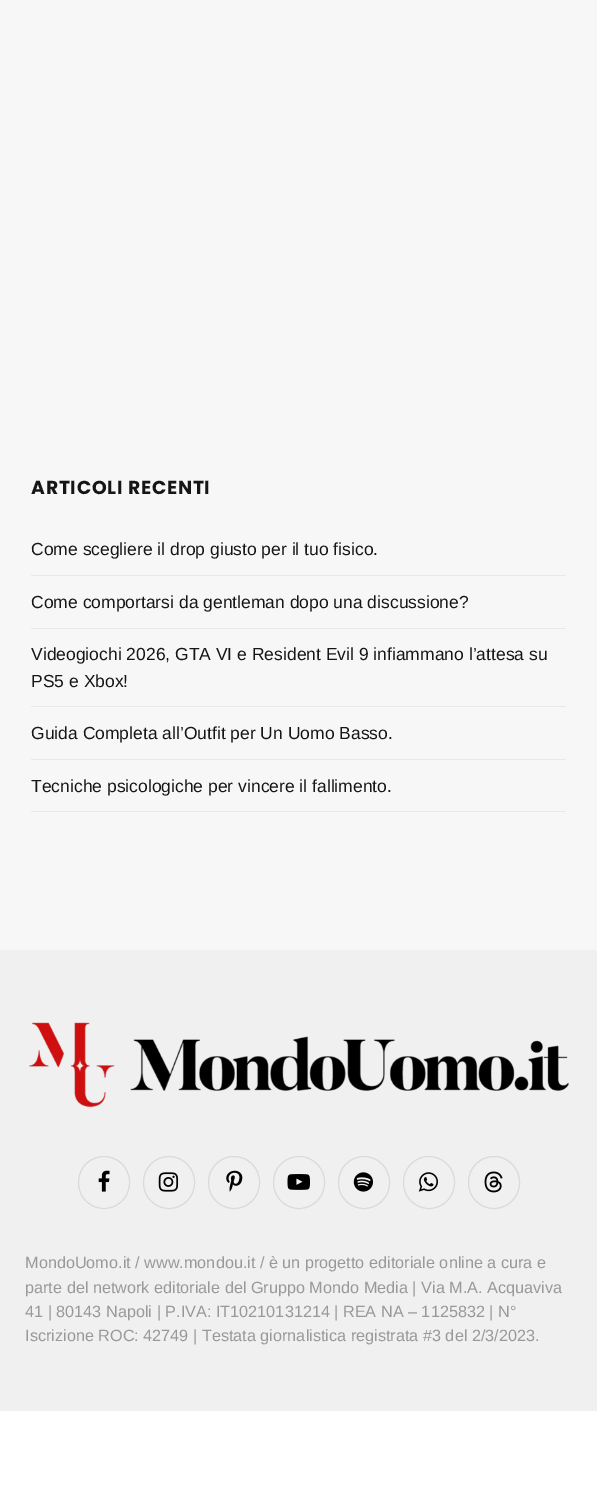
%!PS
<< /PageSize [597 1486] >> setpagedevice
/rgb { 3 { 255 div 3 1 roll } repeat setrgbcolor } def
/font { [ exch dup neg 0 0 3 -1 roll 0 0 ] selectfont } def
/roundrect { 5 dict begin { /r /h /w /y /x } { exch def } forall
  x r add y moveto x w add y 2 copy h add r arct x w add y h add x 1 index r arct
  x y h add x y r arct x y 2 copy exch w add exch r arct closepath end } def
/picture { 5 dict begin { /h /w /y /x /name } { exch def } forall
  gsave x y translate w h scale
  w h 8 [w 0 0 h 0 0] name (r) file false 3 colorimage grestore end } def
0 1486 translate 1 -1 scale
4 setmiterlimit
255 255 255 rgb
0 0 597 1486 rectfill
[
  [0 0 597 950 247 247 247]
  [31 575 535 1 232 232 232]
  [31 628 535 1 232 232 232]
  [31 706 535 1 232 232 232]
  [31 759 535 1 232 232 232]
  [31 811 535 1 232 232 232]
  [0 950 597 461 240 240 240]
] { aload pop rgb rectfill } forall
(img/1.rgb) 29 1022 540 86 picture
218 218 218 rgb
78.5 1156.5 51 52 25.5 roundrect stroke
(img/2.rgb) 98 1170 12 22 picture
143.5 1156.5 51 52 25.5 roundrect stroke
(img/3.rgb) 158 1172 21 20 picture
208.5 1156.5 51 52 25.5 roundrect stroke
(img/4.rgb) 226 1170 17 22 picture
273.5 1156.5 51 52 25.5 roundrect stroke
(img/5.rgb) 287 1174 23 16 picture
338.5 1156.5 51 52 25.5 roundrect stroke
(img/6.rgb) 353 1172 20 20 picture
403.5 1156.5 51 52 25.5 roundrect stroke
(img/7.rgb) 418 1172 20 20 picture
468.5 1156.5 51 52 25.5 roundrect stroke
(img/8.rgb) 484 1171 19 22 picture
/Poppins-Bold 18.75 font
22 22 22 rgb
31 494 moveto 0.75 0 (ARTICOLI RECENTI) ashow
/LiberationSans-Regular 17.5 font
[
  [(Come scegliere il drop giusto per il tuo fisico.) 31 555]
  [(Come comportarsi da gentleman dopo una discussione?) 31 608]
  [(Videogiochi 2026, GTA VI e Resident Evil 9 infiammano l’attesa su) 31 660]
  [(PS5 e Xbox!) 31 687]
  [(Guida Completa all’Outfit per Un Uomo Basso.) 31 739]
  [(Tecniche psicologiche per vincere il fallimento.) 31 792]
] { aload pop moveto show } forall
/LiberationSans-Regular 16.25 font
153 153 153 rgb
[
  [(MondoUomo.it / www.mondou.it / è un progetto editoriale online a cura e) 25 1268]
  [(parte del network editoriale del Gruppo Mondo Media | Via M.A. Acquaviva) 25 1293]
  [(41 | 80143 Napoli | P.IVA: IT10210131214 | REA NA – 1125832 | N°) 25 1317]
  [(Iscrizione ROC: 42749 | Testata giornalistica registrata #3 del 2/3/2023.) 25 1341]
] { aload pop moveto show } forall
showpage
